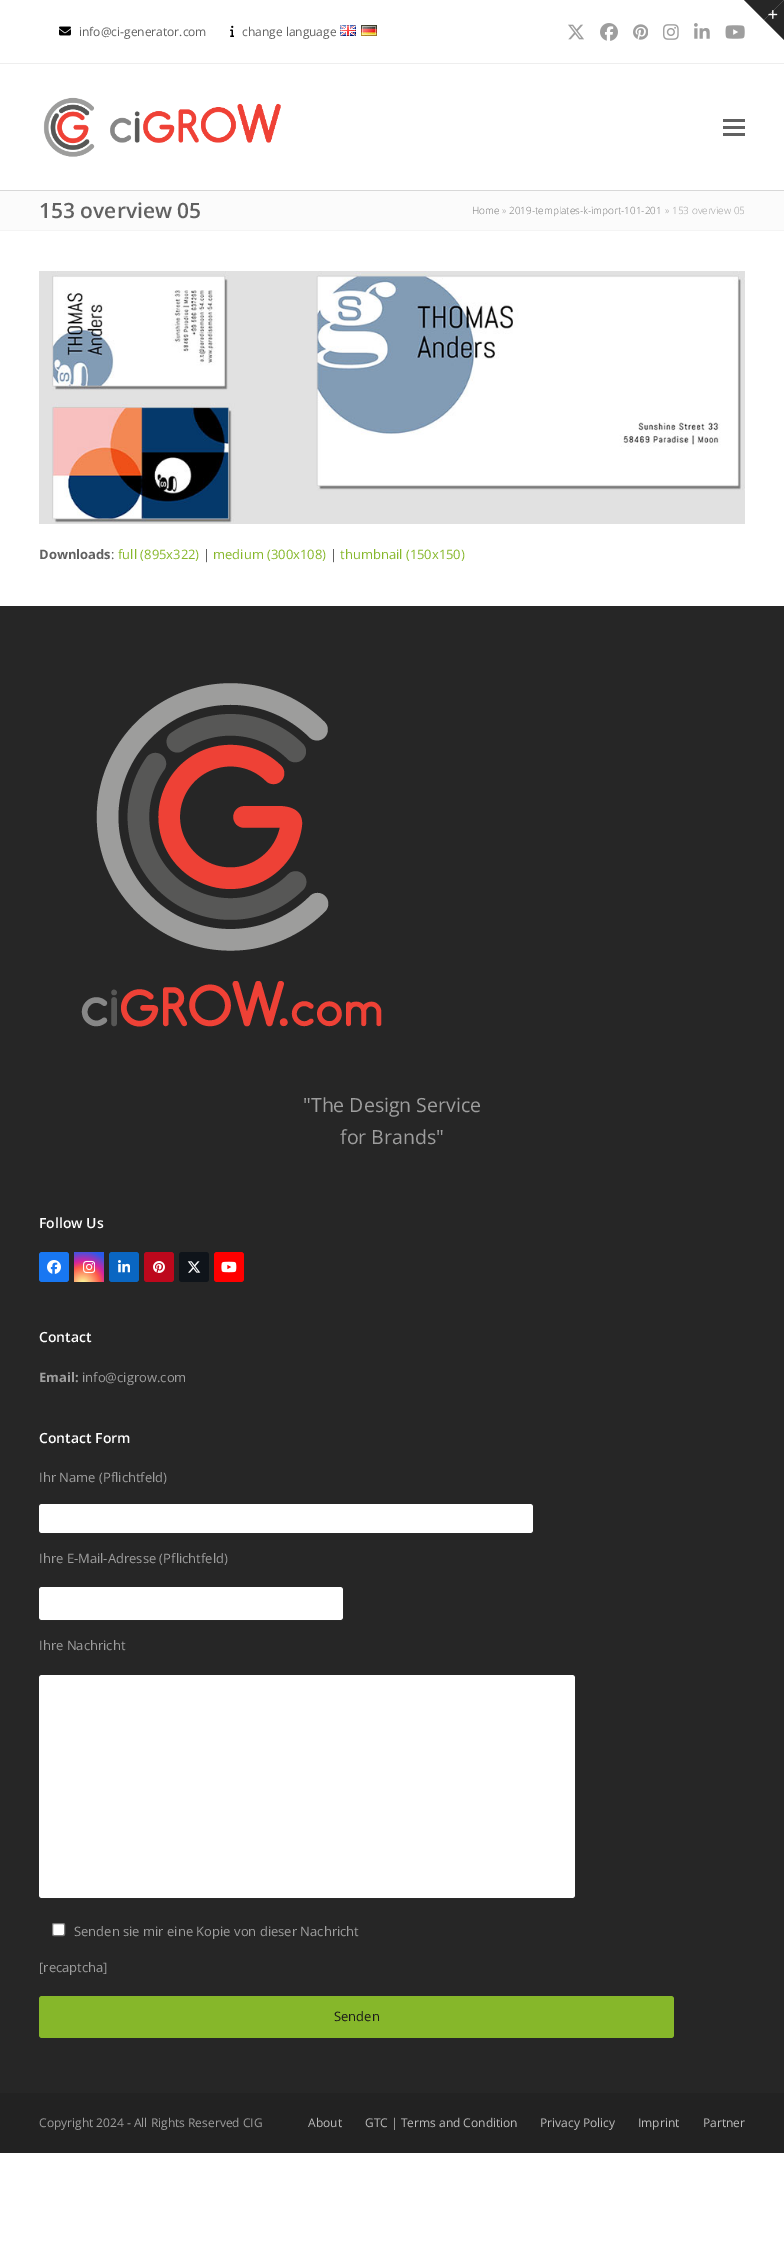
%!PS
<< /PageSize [784 2262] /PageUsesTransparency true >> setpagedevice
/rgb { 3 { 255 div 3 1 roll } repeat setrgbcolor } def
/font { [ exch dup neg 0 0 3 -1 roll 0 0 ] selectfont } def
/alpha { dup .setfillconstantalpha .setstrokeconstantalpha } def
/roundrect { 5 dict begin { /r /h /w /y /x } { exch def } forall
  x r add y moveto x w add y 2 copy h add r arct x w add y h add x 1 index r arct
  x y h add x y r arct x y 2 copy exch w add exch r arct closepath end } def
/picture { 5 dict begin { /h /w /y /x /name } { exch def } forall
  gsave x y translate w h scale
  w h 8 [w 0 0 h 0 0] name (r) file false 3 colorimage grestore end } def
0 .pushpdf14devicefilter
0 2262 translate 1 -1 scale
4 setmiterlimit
255 255 255 rgb
0 0 784 2262 rectfill
38 38 38 rgb
744 0 moveto 784 0 lineto 764 20 lineto closepath fill
784 0 moveto 784 40 lineto 764 20 lineto closepath fill
(img/1.rgb) 768 10 10 9 picture
238 238 238 rgb
0 63 784 1 rectfill
(img/2.rgb) 59 26 12 10 picture
(img/3.rgb) 230 25 4 12 picture
(img/4.rgb) 340 25 16 11 picture
(img/5.rgb) 361 25 16 11 picture
(img/6.rgb) 568 24 16 16 picture
(img/7.rgb) 600 23 18 18 picture
(img/8.rgb) 633 24 15 16 picture
(img/9.rgb) 663 24 16 16 picture
(img/10.rgb) 694 23 16 16 picture
(img/11.rgb) 725 25 20 14 picture
(img/12.rgb) 43 97 238 60 picture
[
  [723 126 22 3 97 97 97]
  [723 119 22 3 97 97 97]
  [723 133 22 3 97 97 97]
  [0 191 784 39 251 251 251]
  [0 190 784 1 216 216 216]
  [0 230 784 1 244 244 244]
] { aload pop rgb rectfill } forall
(img/13.rgb) 39 271 706 253 picture
38 38 38 rgb
0 606 784 1487 rectfill
(img/14.rgb) 81 683 301 344 picture
24 119 242 rgb
39 1252 30 30 3 roundrect fill
(img/15.rgb) 47 1260 14 14 picture
gsave 74 1252 30 30 3 roundrect clip newpath 83 1284 translate 38 38 scale
<< /ShadingType 3 /ColorSpace /DeviceRGB /Coords [0 0 0 0 0 1] /Extend [true true] /Function << /FunctionType 3 /Domain [0 1] /Functions [<< /FunctionType 2 /Domain [0 1] /C0 [0.992 0.957 0.592] /C1 [0.992 0.957 0.592] /N 1 >> << /FunctionType 2 /Domain [0 1] /C0 [0.992 0.957 0.592] /C1 [0.992 0.349 0.286] /N 1 >> << /FunctionType 2 /Domain [0 1] /C0 [0.992 0.349 0.286] /C1 [0.839 0.141 0.624] /N 1 >> << /FunctionType 2 /Domain [0 1] /C0 [0.839 0.141 0.624] /C1 [0.157 0.353 0.922] /N 1 >> << /FunctionType 2 /Domain [0 1] /C0 [0.157 0.353 0.922] /C1 [0.157 0.353 0.922] /N 1 >>] /Bounds [0.05 0.45 0.6 0.9] /Encode [0 1 0 1 0 1 0 1 0 1] >> >> shfill grestore
(img/16.rgb) 83 1260 12 14 picture
10 102 194 rgb
109 1252 30 30 3 roundrect fill
(img/17.rgb) 118 1260 12 13 picture
189 8 28 rgb
144 1252 30 30 3 roundrect fill
(img/18.rgb) 153 1261 12 12 picture
15 20 26 rgb
179 1252 30 30 3 roundrect fill
(img/19.rgb) 187 1261 14 12 picture
255 0 0 rgb
214 1252 30 30 3 roundrect fill
(img/20.rgb) 221 1261 16 12 picture
255 255 255 rgb
39 1504 494 29 3 roundrect fill
0.06 alpha
39.5 1504.5 493 28 rectstroke
1 alpha
39 1587 304 33 3 roundrect fill
0.06 alpha
39.5 1587.5 303 32 rectstroke
1 alpha
39 1675 536 223 3 roundrect fill
0.06 alpha
39.5 1675.5 535 222 rectstroke
1 alpha
52.5 1923.5 12 12 1.5 roundrect gsave fill grestore
118 118 118 rgb
stroke
134 183 42 rgb
39 1996 635 42 3 roundrect fill
34 34 34 rgb
0 2093 784 60 rectfill
/OpenSans-Regular 12 font
97 97 97 rgb
79 36 moveto (info@ci-generator.com) show
242 36 moveto (change language) show
/OpenSans-SemiBold 21 font
39 218 moveto (153 overview 05) show
/OpenSans-Light 10 font
117 117 117 rgb
472 214 moveto (Home) show
158 158 158 rgb
502 214 moveto (») show
117 117 117 rgb
509 214 moveto (2019-templates-k-import-101-201) show
158 158 158 rgb
665 214 moveto (» 153 overview 05) show
/OpenSans-Bold 13 font
97 97 97 rgb
39 559 moveto (Downloads) show
/OpenSans-Regular 13 font
111 559 moveto (:) show
134 183 42 rgb
118 559 moveto (full \(895x322\)) show
97 97 97 rgb
203 559 moveto (|) show
134 183 42 rgb
213 559 moveto (medium \(300x108\)) show
97 97 97 rgb
330 559 moveto (|) show
134 183 42 rgb
340 559 moveto (thumbnail \(150x150\)) show
/OpenSans-Regular 19.5 font
158 158 158 rgb
303 1112 moveto ("The Design Service) show
340 1144 moveto (for Brands") show
/OpenSans-SemiBold 14 font
255 255 255 rgb
39 1228 moveto (Follow Us) show
39 1342 moveto (Contact) show
/OpenSans-Bold 13 font
158 158 158 rgb
39 1382 moveto (Email:) show
/OpenSans-Regular 13 font
82 1382 moveto (info@cigrow.com) show
/OpenSans-SemiBold 14 font
255 255 255 rgb
39 1443 moveto (Contact Form) show
/OpenSans-Regular 13 font
158 158 158 rgb
[
  [(Ihr Name \(Pflichtfeld\)) 39 1482]
  [(Ihre E-Mail-Adresse \(Pflichtfeld\)) 39 1563]
  [(Ihre Nachricht) 39 1650]
  [(Senden sie mir eine Kopie von dieser Nachricht) 74 1936]
  [([recaptcha]) 39 1972]
] { aload pop moveto show } forall
25 25 25 rgb
334 2021 moveto (Senden) show
/OpenSans-Regular 12 font
158 158 158 rgb
39 2127 moveto (Copyright 2024 - All Rights Reserved CIG) show
189 189 189 rgb
[
  [(About) 308 2127]
  [(GTC | Terms and Condition) 365 2127]
  [(Privacy Policy) 540 2127]
  [(Imprint) 638 2127]
  [(Partner) 703 2127]
] { aload pop moveto show } forall
.poppdf14devicefilter showpage
